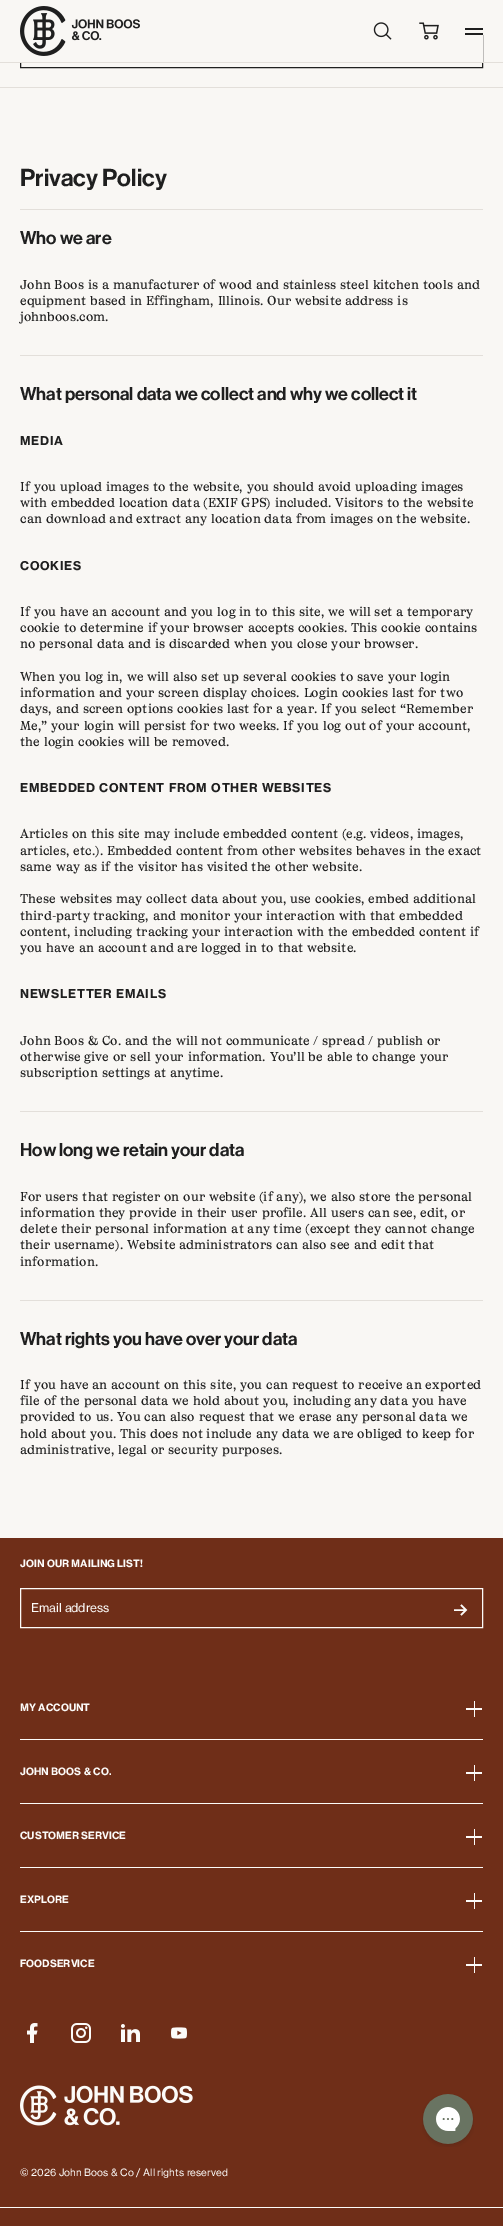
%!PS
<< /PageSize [503 2226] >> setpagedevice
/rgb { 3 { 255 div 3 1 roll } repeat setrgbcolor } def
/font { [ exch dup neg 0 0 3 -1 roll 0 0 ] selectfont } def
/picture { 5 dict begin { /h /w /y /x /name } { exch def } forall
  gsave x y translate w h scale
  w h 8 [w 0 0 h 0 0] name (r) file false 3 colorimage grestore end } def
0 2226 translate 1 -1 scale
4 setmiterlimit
249 247 244 rgb
0 0 503 2226 rectfill
31 31 31 rgb
20.5 35.5 462 32 rectstroke
249 247 244 rgb
20 35 463 27 rectfill
227 223 218 rgb
0 62 503 1 rectfill
(img/1.rgb) 20 6 120 50 picture
(img/2.rgb) 373 22 19 18 picture
(img/3.rgb) 419 22 20 18 picture
[
  [465 28 18 2 31 31 31]
  [465 33 18 2 31 31 31]
  [0 87 503 1 227 223 218]
  [20 209 463 1 227 223 218]
  [20 355 463 1 227 223 218]
  [20 1111 463 1 227 223 218]
  [20 1300 463 1 227 223 218]
  [0 1538 503 688 111 46 24]
] { aload pop rgb rectfill } forall
252 251 249 rgb
20.5 1588.5 462 39 rectstroke
1.5 setlinewidth
461 1605 moveto 466 1610 lineto 461 1615 lineto 454 1610 moveto 465.5 1610 lineto stroke
[
  [474 1701 1 16 252 251 249]
  [466 1708 16 2 252 251 249]
  [20 1739 463 1 252 251 249]
  [474 1765 1 16 252 251 249]
  [466 1772 16 2 252 251 249]
  [20 1803 463 1 252 251 249]
  [474 1829 1 16 252 251 249]
  [466 1836 16 2 252 251 249]
  [20 1867 463 1 252 251 249]
  [474 1893 1 16 252 251 249]
  [466 1900 16 2 252 251 249]
  [20 1931 463 1 252 251 249]
  [474 1957 1 16 252 251 249]
  [466 1964 16 2 252 251 249]
] { aload pop rgb rectfill } forall
(img/4.rgb) 27 2023 11 20 picture
(img/5.rgb) 71 2023 20 20 picture
(img/6.rgb) 121 2024 19 18 picture
(img/7.rgb) 171 2027 16 12 picture
(img/8.rgb) 20 2085 173 41 picture
0 2207 503 1 rectfill
(img/9.rgb) 422 2094 52 53 picture
/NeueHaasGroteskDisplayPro-Medium 24 font
31 31 31 rgb
20 186 moveto (Privacy Policy) show
/NeueHaasGroteskDisplayPro-Medium 18 font
20 244 moveto (Who we are) show
/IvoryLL-Regular 13 font
[
  [(John Boos is a manufacturer of wood and stainless steel kitchen tools and) 20 289]
  [(equipment based in Effingham, Illinois. Our website address is) 20 305]
  [(johnboos.com.) 20 321]
] { aload pop moveto show } forall
/NeueHaasGroteskDisplayPro-Medium 18 font
20 400 moveto (What personal data we collect and why we collect it) show
/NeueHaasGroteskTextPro-Bold 12 font
20 445 moveto 0.7 0 (MEDIA) ashow
/IvoryLL-Regular 13 font
[
  [(If you upload images to the website, you should avoid uploading images) 20 491]
  [(with embedded location data \(EXIF GPS\) included. Visitors to the website) 20 507]
  [(can download and extract any location data from images on the website.) 20 523]
] { aload pop moveto show } forall
/NeueHaasGroteskTextPro-Bold 12 font
20 570 moveto 0.7 0 (COOKIES) ashow
/IvoryLL-Regular 13 font
[
  [(If you have an account and you log in to this site, we will set a temporary) 20 616]
  [(cookie to determine if your browser accepts cookies. This cookie contains) 20 632]
  [(no personal data and is discarded when you close your browser.) 20 648]
  [(When you log in, we will also set up several cookies to save your login) 20 681]
  [(information and your screen display choices. Login cookies last for two) 20 697]
  [(days, and screen options cookies last for a year. If you select “Remember) 20 713]
  [(Me,” your login will persist for two weeks. If you log out of your account,) 20 730]
  [(the login cookies will be removed.) 20 746]
] { aload pop moveto show } forall
/NeueHaasGroteskTextPro-Bold 12 font
20 792 moveto 0.7 0 (EMBEDDED CONTENT FROM OTHER WEBSITES) ashow
/IvoryLL-Regular 13 font
[
  [(Articles on this site may include embedded content \(e.g. videos, images,) 20 838]
  [(articles, etc.\). Embedded content from other websites behaves in the exact) 20 855]
  [(same way as if the visitor has visited the other website.) 20 871]
  [(These websites may collect data about you, use cookies, embed additional) 20 903]
  [(third-party tracking, and monitor your interaction with that embedded) 20 920]
  [(content, including tracking your interaction with the embedded content if) 20 936]
  [(you have an account and are logged in to that website.) 20 952]
] { aload pop moveto show } forall
/NeueHaasGroteskTextPro-Bold 12 font
20 998 moveto 0.7 0 (NEWSLETTER EMAILS) ashow
/IvoryLL-Regular 13 font
[
  [(John Boos & Co. and the will not communicate / spread / publish or) 20 1045]
  [(otherwise give or sell your information. You’ll be able to change your) 20 1061]
  [(subscription settings at anytime.) 20 1077]
] { aload pop moveto show } forall
/NeueHaasGroteskDisplayPro-Medium 18 font
20 1156 moveto (How long we retain your data) show
/IvoryLL-Regular 13 font
[
  [(For users that register on our website \(if any\), we also store the personal) 20 1201]
  [(information they provide in their user profile. All users can see, edit, or) 20 1217]
  [(delete their personal information at any time \(except they cannot change) 20 1233]
  [(their username\). Website administrators can also see and edit that) 20 1249]
  [(information.) 20 1266]
] { aload pop moveto show } forall
/NeueHaasGroteskDisplayPro-Medium 18 font
20 1345 moveto (What rights you have over your data) show
/IvoryLL-Regular 13 font
[
  [(If you have an account on this site, you can request to receive an exported) 20 1389]
  [(file of the personal data we hold about you, including any data you have) 20 1405]
  [(provided to us. You can also request that we erase any personal data we) 20 1421]
  [(hold about you. This does not include any data we are obliged to keep for) 20 1438]
  [(administrative, legal or security purposes.) 20 1454]
] { aload pop moveto show } forall
/NeueHaasGroteskTextPro-Bold 10 font
252 251 249 rgb
20 1567 moveto (JOIN OUR MAILING LIST!) show
/NeueHaasGroteskTextPro-Regular 12 font
31 1612 moveto (Email address) show
/NeueHaasGroteskTextPro-Bold 10 font
[
  [(MY ACCOUNT) 20 1711]
  [(JOHN BOOS & CO.) 20 1775]
  [(CUSTOMER SERVICE) 20 1839]
  [(EXPLORE) 20 1903]
  [(FOODSERVICE) 20 1967]
] { aload pop moveto show } forall
/NeueHaasGroteskTextPro-Regular 10 font
20 2176 moveto (© 2026 John Boos & Co / All rights reserved) show
showpage
